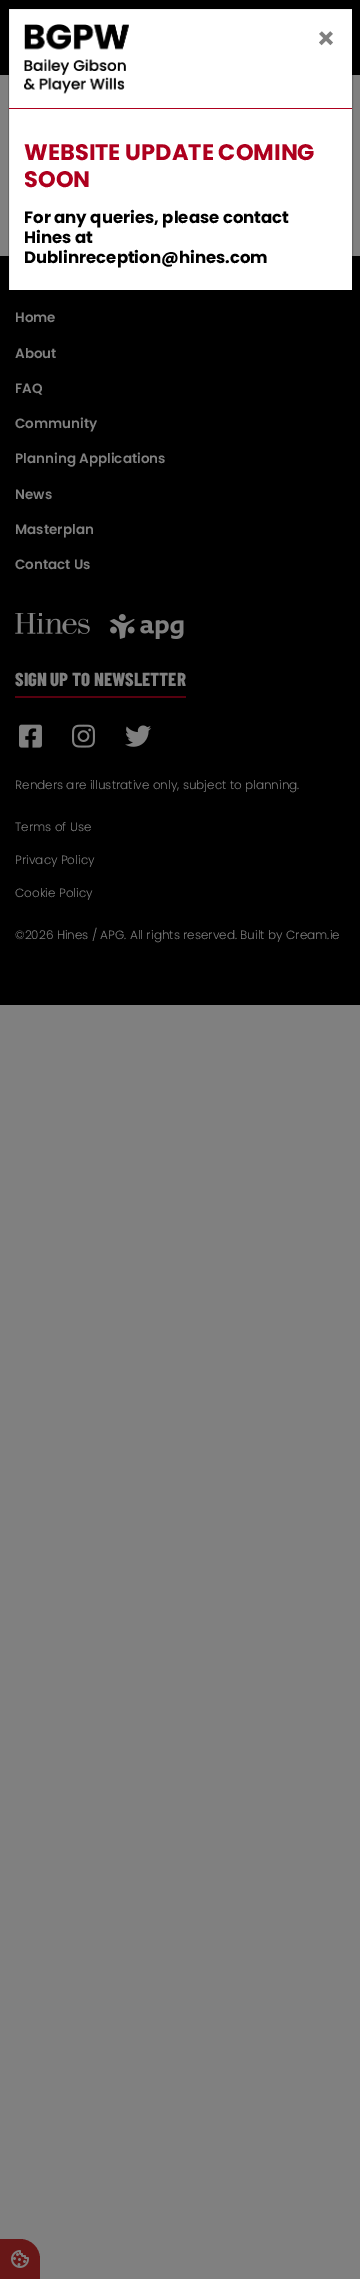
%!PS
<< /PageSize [360 2279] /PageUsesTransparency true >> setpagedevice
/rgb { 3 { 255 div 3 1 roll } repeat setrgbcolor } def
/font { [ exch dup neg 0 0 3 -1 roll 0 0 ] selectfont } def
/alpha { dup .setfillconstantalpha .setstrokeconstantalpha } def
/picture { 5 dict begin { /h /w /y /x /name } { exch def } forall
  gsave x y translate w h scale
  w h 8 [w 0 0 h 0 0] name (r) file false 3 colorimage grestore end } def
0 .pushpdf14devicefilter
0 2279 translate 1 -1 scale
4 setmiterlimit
128 128 128 rgb
0 0 360 2279 rectfill
[
  [0 0 360 75 0 0 0]
  [0 256 360 749 0 0 0]
  [9 9 343 281 255 255 255]
] { aload pop rgb rectfill } forall
0.2 alpha
0 0 0 rgb
8.5 8.5 344 282 rectstroke
1 alpha
174 0 30 rgb
9 108 343 1 rectfill
(img/1.rgb) 24 24 105 70 picture
(img/2.rgb) 15 613 75 21 picture
(img/3.rgb) 109 614 75 25 picture
87 0 15 rgb
15 696 171 2 rectfill
(img/4.rgb) 19 724 23 24 picture
(img/5.rgb) 72 724 23 24 picture
(img/6.rgb) 125 725 27 22 picture
104 23 23 rgb
0 2239 moveto 20 2239 lineto 31 2239 40 2248 40 2259 curveto 40 2279 lineto 0 2279 lineto closepath fill
(img/7.rgb) 11 2250 18 18 picture
/Poppins-SemiBold 30 font
128 128 128 rgb
316 49 moveto (×) show
/Poppins-Bold 22.5 font
174 0 30 rgb
24 160 moveto (WEBSITE UPDATE COMING) show
24 187 moveto (SOON) show
/Poppins-Bold 16.5 font
0 0 0 rgb
[
  [(For any queries, please contact) 24 223]
  [(Hines at) 24 243]
  [(Dublinreception@hines.com) 24 263]
] { aload pop moveto show } forall
/Poppins-SemiBold 13.5 font
128 128 128 rgb
[
  [(Home) 15 322]
  [(About) 15 358]
  [(FAQ) 15 393]
  [(Community) 15 428]
  [(Planning Applications) 15 463]
  [(News) 15 499]
  [(Masterplan) 15 534]
  [(Contact Us) 15 569]
] { aload pop moveto show } forall
/BarlowCondensed-ExtraBold 18.75 font
15 686 moveto (SIGN UP TO NEWSLETTER) show
/Poppins-Light 12 font
[
  [(Renders are illustrative only, subject to planning.) 15 789]
  [(Terms of Use) 15 831]
  [(Privacy Policy) 15 864]
  [(Cookie Policy) 15 897]
  [(©2026 Hines / APG. All rights reserved. Built by Cream.ie) 15 939]
] { aload pop moveto show } forall
.poppdf14devicefilter showpage
